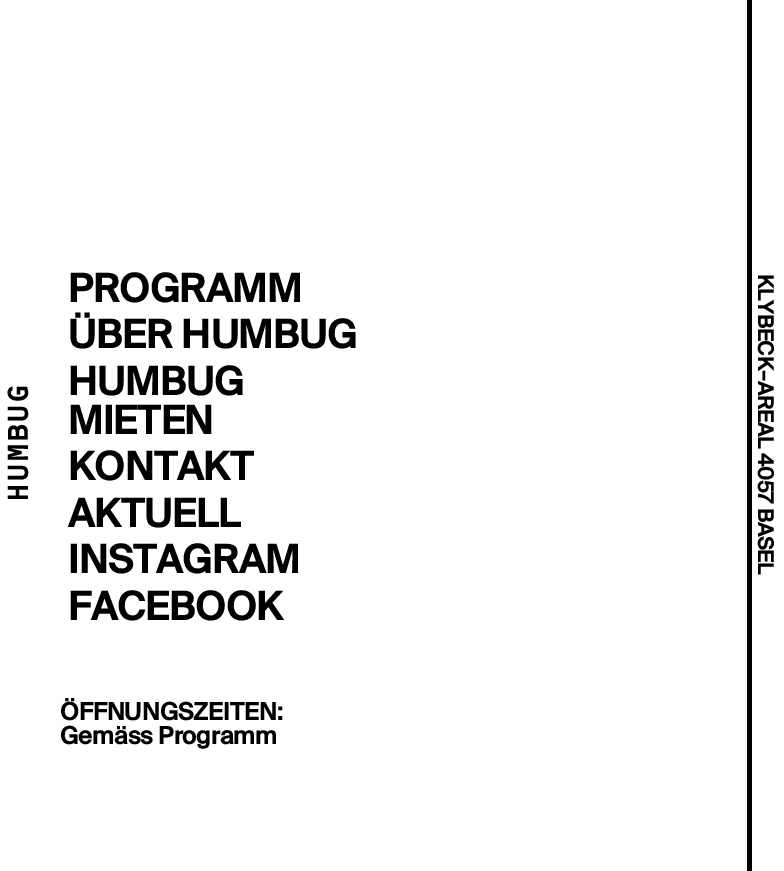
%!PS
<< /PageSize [784 871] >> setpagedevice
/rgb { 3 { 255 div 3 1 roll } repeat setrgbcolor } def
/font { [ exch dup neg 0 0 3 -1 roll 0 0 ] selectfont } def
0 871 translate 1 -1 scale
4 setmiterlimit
255 255 255 rgb
0 0 784 871 rectfill
0 0 0 rgb
747 0 5 871 rectfill
/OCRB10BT-Bold 33 font
gsave 28 503 translate -90 rotate 0 0 moveto (HUMBUG) show grestore
/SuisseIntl-Bold 39 font
[
  [(PROGRAMM) 68 302]
  [(ÜBER HUMBUG) 68 348]
  [(HUMBUG) 68 395]
  [(MIETEN) 68 434]
  [(KONTAKT) 68 480]
  [(AKTUELL) 68 527]
  [(INSTAGRAM) 68 573]
  [(FACEBOOK) 68 620]
] { aload pop moveto show } forall
/SuisseIntl-Bold 24 font
60 720 moveto (ÖFFNUNGSZEITEN:) show
60 744 moveto (Gemäss Programm) show
/SuisseIntl-Bold 21 font
gsave 758 274 translate 90 rotate 0 0 moveto (KLYBECK–AREAL 4057 BASEL) show grestore
showpage
